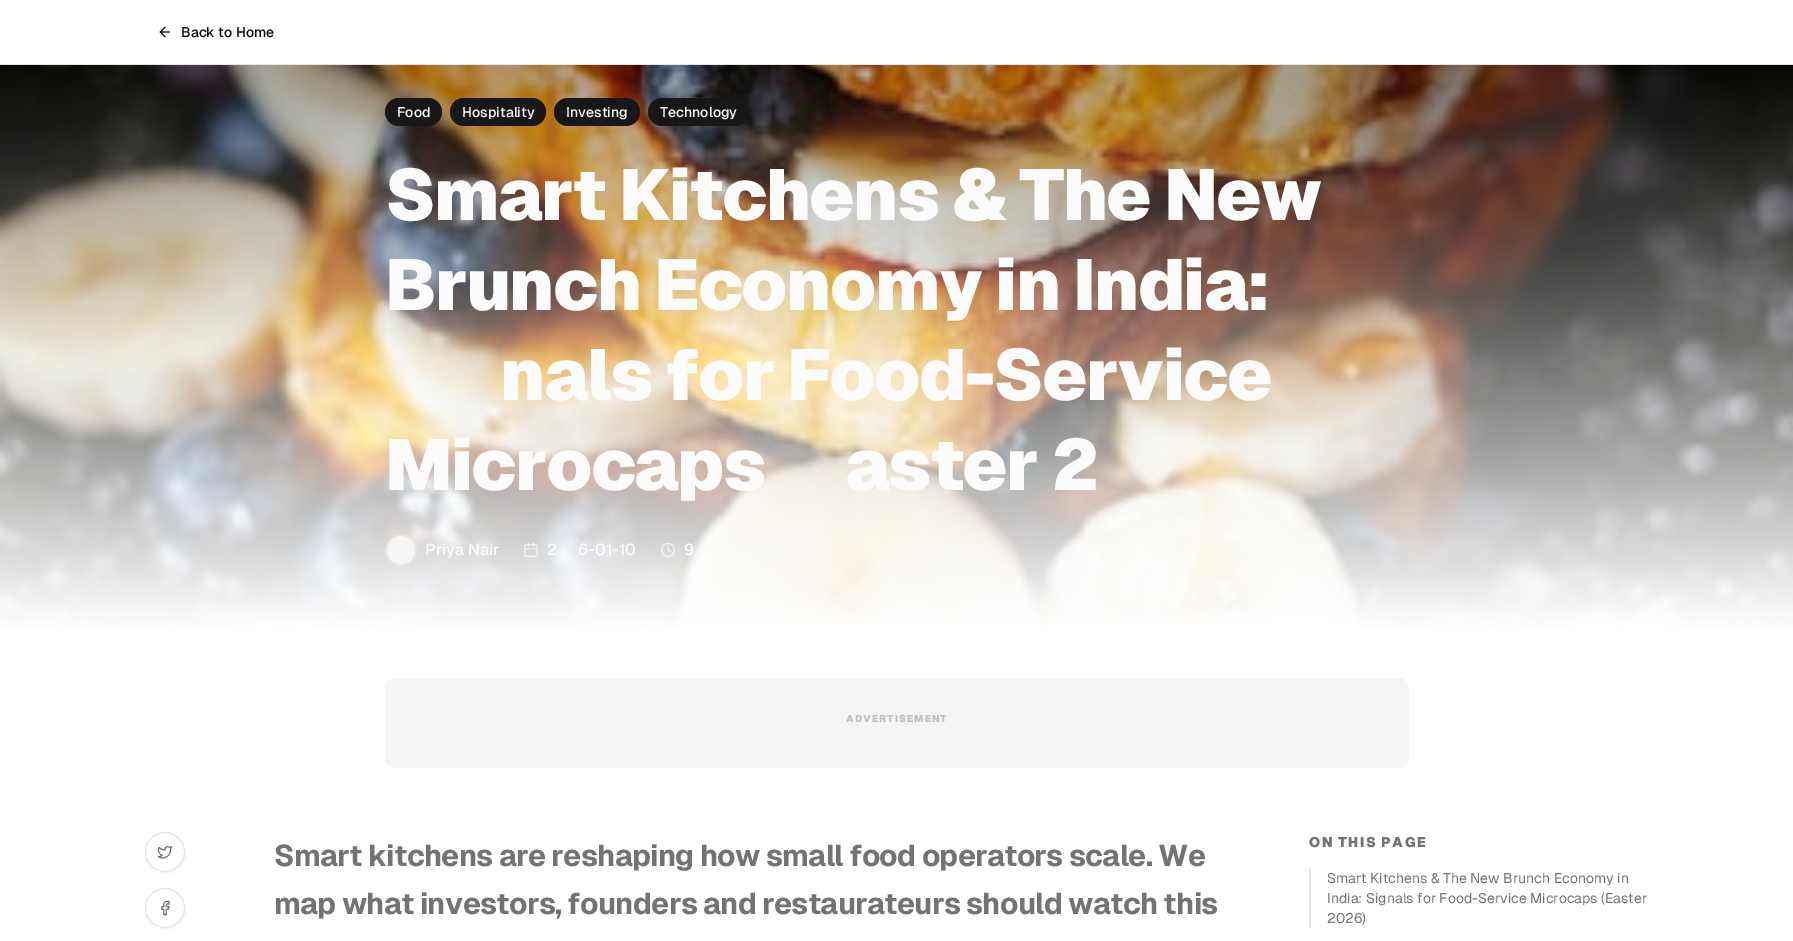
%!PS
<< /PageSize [1793 941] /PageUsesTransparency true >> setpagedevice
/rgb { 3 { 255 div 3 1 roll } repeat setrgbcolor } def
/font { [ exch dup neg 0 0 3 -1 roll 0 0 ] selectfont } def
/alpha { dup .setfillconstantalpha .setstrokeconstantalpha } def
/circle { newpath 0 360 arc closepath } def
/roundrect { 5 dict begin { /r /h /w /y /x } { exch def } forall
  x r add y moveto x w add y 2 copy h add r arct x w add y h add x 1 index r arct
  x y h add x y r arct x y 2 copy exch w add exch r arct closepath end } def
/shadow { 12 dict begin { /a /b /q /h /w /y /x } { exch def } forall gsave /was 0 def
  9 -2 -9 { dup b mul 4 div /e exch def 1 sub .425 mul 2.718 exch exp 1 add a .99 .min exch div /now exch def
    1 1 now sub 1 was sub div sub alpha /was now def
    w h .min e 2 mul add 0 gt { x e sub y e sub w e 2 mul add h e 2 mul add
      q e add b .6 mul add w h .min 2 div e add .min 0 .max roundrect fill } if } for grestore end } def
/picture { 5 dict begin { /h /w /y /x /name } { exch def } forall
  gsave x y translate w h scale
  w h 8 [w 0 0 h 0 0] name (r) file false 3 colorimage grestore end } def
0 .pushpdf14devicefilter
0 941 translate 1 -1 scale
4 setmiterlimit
255 255 255 rgb
0 0 1793 941 rectfill
229 229 229 rgb
0 64 1793 1 rectfill
(img/1.rgb) 159 26 12 12 picture
(img/2.rgb) 0 65 1793 565 picture
23 23 23 rgb
385 98 57 28 14 roundrect fill
450 98 96 28 14 roundrect fill
554 98 86 28 14 roundrect fill
648 98 101 28 14 roundrect fill
0.2 alpha
255 255 255 rgb
2 setlinewidth
401 550 15 circle stroke
1 alpha
245 245 245 rgb
401 550 14 circle fill
(img/3.rgb) 524 542 14 15 picture
0.63 alpha
255 255 255 rgb
1.3 setlinewidth
1 setlinecap
1 setlinejoin
668 546 moveto 668 550 lineto 670.5 551.5 lineto stroke
0 setlinecap
0 setlinejoin
668 550 6.5 circle stroke
1 alpha
245 245 245 rgb
385 678 1024 90 10 roundrect fill
0 0 0 rgb
145 833 40 40 20 1 0.05 shadow
255 255 255 rgb
165 852 19.5 circle gsave fill grestore
229 229 229 rgb
1 setlinewidth
stroke
(img/4.rgb) 157 846 16 13 picture
0 0 0 rgb
145 889 40 40 20 1 0.05 shadow
255 255 255 rgb
165 908 19.5 circle gsave fill grestore
229 229 229 rgb
stroke
(img/5.rgb) 161 900 9 16 picture
1309 868 2 60 rectfill
/Geist-Medium 14 font
10 10 10 rgb
181 37 moveto (Back to Home) show
252 252 252 rgb
[
  [(Food) 397 117]
  [(Hospitality) 462 117]
  [(Investing) 566 117]
  [(Technology) 660 117]
] { aload pop moveto show } forall
/Geist-Black 72 font
385 220 moveto -1.8 0 (Smart Kitchens & The New) ashow
385 310 moveto -1.8 0 (Brunch Economy in India:) ashow
500 400 moveto -1.8 0 (nals for Food-Service) ashow
385 490 moveto -1.8 0 (Microcaps) ashow
845 490 moveto -1.8 0 (aster 2) ashow
/Geist-Medium 16 font
[
  [(Priya Nair) 425 555]
  [(2) 547 555]
  [(6-01-10) 578 555]
  [(9) 684 555]
] { aload pop moveto show } forall
/Geist-Black 10 font
193 193 193 rgb
846 722 moveto 1 0 (ADVERTISEMENT) ashow
/Geist-Bold 30 font
115 115 115 rgb
274 866 moveto -0.75 0 (Smart kitchens are reshaping how small food operators scale. We) ashow
274 914 moveto -0.75 0 (map what investors, founders and restaurateurs should watch this) ashow
/Geist-Black 14 font
1309 847 moveto 1.4 0 (ON THIS PAGE) ashow
/Geist-Regular 14 font
[
  [(Smart Kitchens & The New Brunch Economy in) 1327 883]
  [(India: Signals for Food-Service Microcaps \(Easter) 1327 903]
  [(2026\)) 1327 923]
] { aload pop moveto show } forall
.poppdf14devicefilter showpage
